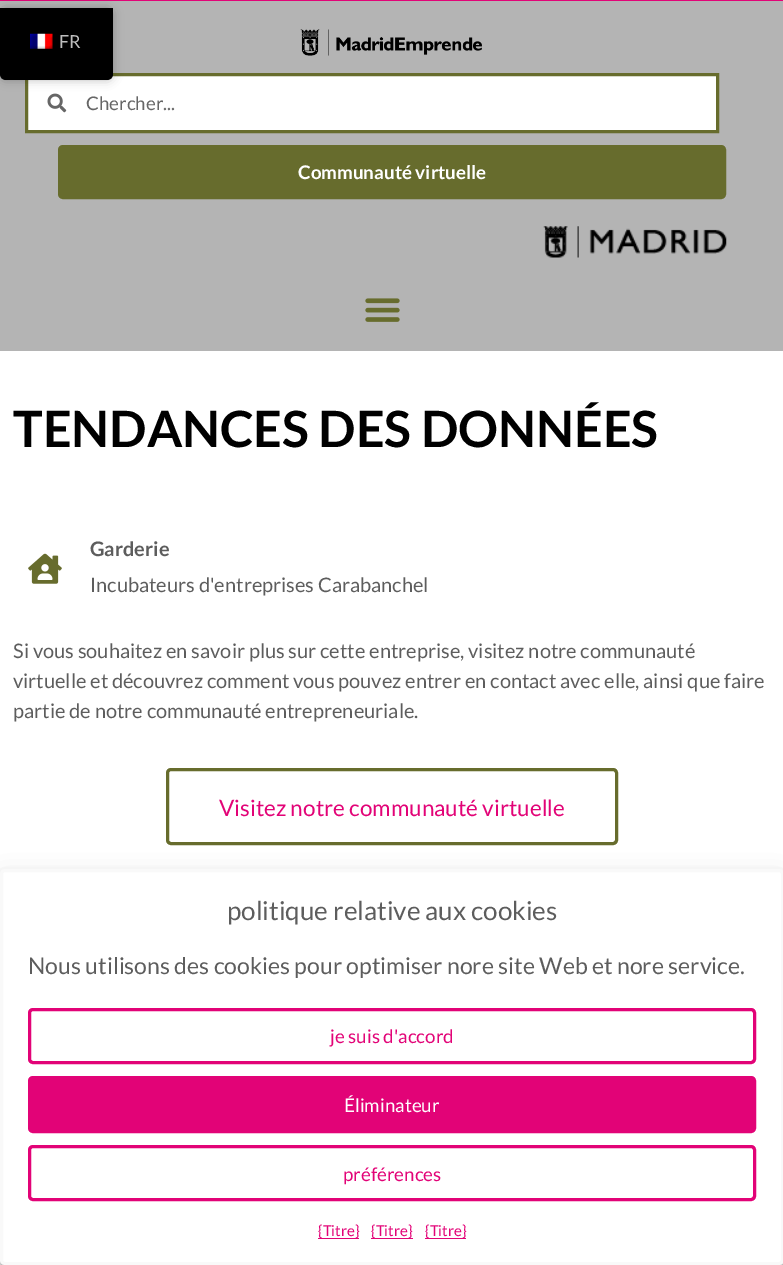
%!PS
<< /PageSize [783 1265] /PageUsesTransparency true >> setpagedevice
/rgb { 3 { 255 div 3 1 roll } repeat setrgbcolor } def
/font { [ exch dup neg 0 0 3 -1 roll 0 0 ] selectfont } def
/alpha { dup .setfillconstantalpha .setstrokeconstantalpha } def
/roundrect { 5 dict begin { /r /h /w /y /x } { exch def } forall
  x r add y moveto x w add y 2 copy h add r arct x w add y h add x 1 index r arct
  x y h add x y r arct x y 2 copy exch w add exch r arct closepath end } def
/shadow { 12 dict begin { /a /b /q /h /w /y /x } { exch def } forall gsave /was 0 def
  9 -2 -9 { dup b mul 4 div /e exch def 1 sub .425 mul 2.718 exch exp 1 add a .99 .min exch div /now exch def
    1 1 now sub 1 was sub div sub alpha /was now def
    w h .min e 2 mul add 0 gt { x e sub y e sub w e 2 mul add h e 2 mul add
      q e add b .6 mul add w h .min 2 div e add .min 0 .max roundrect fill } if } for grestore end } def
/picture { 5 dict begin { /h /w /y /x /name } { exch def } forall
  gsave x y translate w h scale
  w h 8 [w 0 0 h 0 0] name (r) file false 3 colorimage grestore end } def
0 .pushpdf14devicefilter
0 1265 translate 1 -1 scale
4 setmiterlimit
255 255 255 rgb
0 0 783 1265 rectfill
180 180 180 rgb
0 1 783 350 rectfill
226 3 119 rgb
0 0 783 1 rectfill
255 255 255 rgb
26.5 74.5 moveto 717.5 74.5 lineto 717.5 131.5 lineto 26.5 131.5 lineto closepath gsave fill grestore
103 108 45 rgb
3 setlinewidth
stroke
(img/3.rgb) 47 93 20 20 picture
0 0 0 rgb
0 8 113 72 6 5 0.25 shadow
0 8 moveto 113 8 lineto 113 74 lineto 113 77.5 110.5 80 107 80 curveto 6 80 lineto 2.5 80 0 77.5 0 74 curveto closepath fill
(img/1.rgb) 30 33 23 16 picture
(img/2.rgb) 300 29 182 27 picture
103 108 45 rgb
59.5 146.5 665 51 3.5 roundrect gsave fill grestore
stroke
(img/4.rgb) 543 226 184 32 picture
(img/5.rgb) 365 298 35 24 picture
(img/6.rgb) 28 553 34 31 picture
167.5 769.5 449 74 3.5 roundrect stroke
0 0 0 rgb
0 876 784 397 5 4 0.23 shadow
0 881 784 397 5 12.5 0.19 shadow
255 255 255 rgb
1.5 870.5 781 393 3.5 roundrect gsave fill grestore
249 249 249 rgb
stroke
226 3 119 rgb
29.5 1009.5 725 53 3.5 roundrect stroke
29.5 1077.5 725 54 3.5 roundrect gsave fill grestore
stroke
29.5 1146.5 725 53 3.5 roundrect stroke
[
  [318 1238 41 1 226 3 119]
  [371 1238 42 1 226 3 119]
  [425 1238 41 1 226 3 119]
] { aload pop rgb rectfill } forall
/Lato-Regular 18 font
189 189 189 rgb
59 48 moveto (FR) show
/Lato-Regular 18.75 font
102 102 102 rgb
86 110 moveto (Chercher...) show
/Lato-Bold 18.75 font
255 255 255 rgb
298 179 moveto (Communauté virtuelle) show
/Lato-Bold 50 font
0 0 0 rgb
13 447 moveto (TENDANCES DES DONNÉES) show
/Lato-Bold 20 font
93 93 93 rgb
90 556 moveto (Garderie) show
/Lato-Regular 20 font
[
  [(Incubateurs d'entreprises Carabanchel) 90 592]
  [(Si vous souhaitez en savoir plus sur cette entreprise, visitez notre communauté) 13 658]
  [(virtuelle et découvrez comment vous pouvez entrer en contact avec elle, ainsi que faire) 13 688]
  [(partie de notre communauté entrepreneuriale.) 13 718]
] { aload pop moveto show } forall
/Lato-Regular 22.5 font
226 3 119 rgb
219 816 moveto (Visitez notre communauté virtuelle) show
/Lato-Regular 26 font
93 93 93 rgb
227 920 moveto (politique relative aux cookies) show
/Lato-Regular 23 font
28 974 moveto (Nous utilisons des cookies pour optimiser nore site Web et nore service.) show
/Lato-Regular 18.75 font
226 3 119 rgb
330 1043 moveto (je suis d'accord) show
255 255 255 rgb
344 1112 moveto (Éliminateur) show
226 3 119 rgb
343 1181 moveto (préférences) show
/Lato-Regular 15 font
[
  [({Titre}) 318 1236]
  [({Titre}) 371 1236]
  [({Titre}) 425 1236]
] { aload pop moveto show } forall
.poppdf14devicefilter showpage
